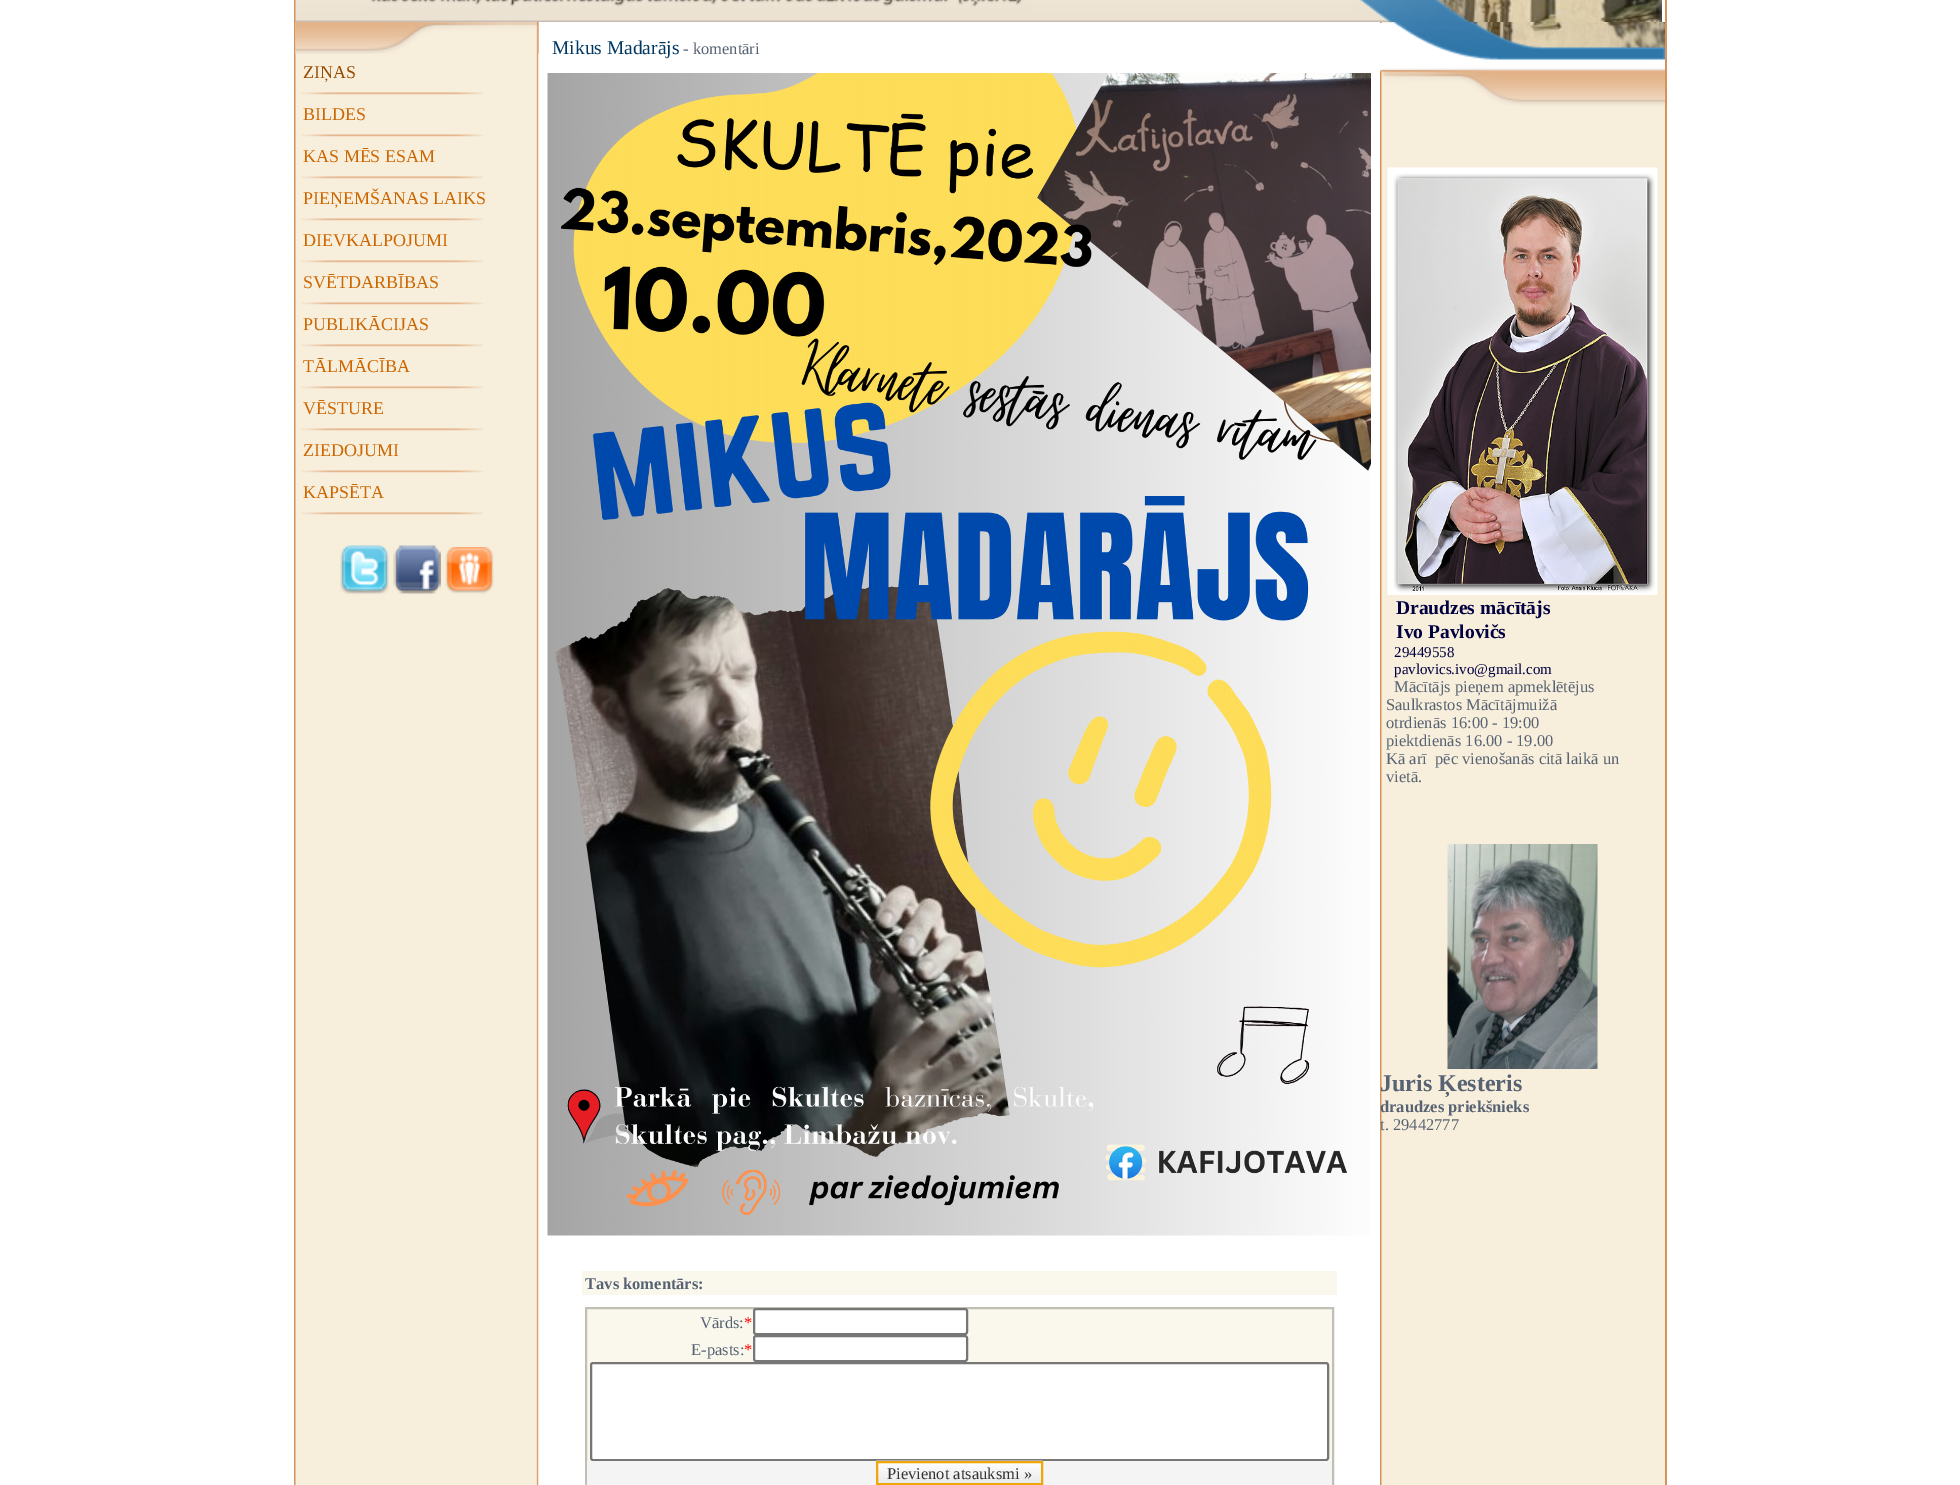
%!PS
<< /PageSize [1960 1485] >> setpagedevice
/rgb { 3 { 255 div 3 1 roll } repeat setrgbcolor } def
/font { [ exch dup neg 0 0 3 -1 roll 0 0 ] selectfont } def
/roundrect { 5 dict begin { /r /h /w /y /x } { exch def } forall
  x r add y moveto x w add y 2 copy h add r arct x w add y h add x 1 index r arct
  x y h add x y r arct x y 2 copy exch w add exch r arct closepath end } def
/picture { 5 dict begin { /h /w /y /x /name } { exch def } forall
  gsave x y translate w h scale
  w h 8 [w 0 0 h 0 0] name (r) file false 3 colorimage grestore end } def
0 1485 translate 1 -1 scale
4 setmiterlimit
255 255 255 rgb
0 0 1960 1485 rectfill
215 146 90 rgb
1665 0 2 1485 rectfill
294 0 2 1485 rectfill
(img/1.rgb) 295 0 1367 22 picture
(img/2.rgb) 295 22 244 1463 picture
(img/3.rgb) 295 22 244 32 picture
(img/4.rgb) 301 92 182 3 picture
(img/4.rgb) 301 134 182 3 picture
(img/4.rgb) 301 176 182 3 picture
(img/4.rgb) 301 218 182 3 picture
(img/4.rgb) 301 260 182 3 picture
(img/4.rgb) 301 302 182 3 picture
(img/4.rgb) 301 344 182 3 picture
(img/4.rgb) 301 386 182 3 picture
(img/4.rgb) 301 428 182 3 picture
(img/4.rgb) 301 470 182 3 picture
(img/4.rgb) 301 512 182 3 picture
(img/5.rgb) 340 545 49 49 picture
(img/6.rgb) 393 545 48 49 picture
(img/7.rgb) 445 547 49 47 picture
(img/8.rgb) 547 73 824 1163 picture
250 248 237 rgb
582 1271 755 24 rectfill
587 1309 745 152 rectfill
194 192 180 rgb
2 setlinewidth
586 1308 747 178 rectstroke
255 255 255 rgb
754 1309 213 25 2 roundrect gsave fill grestore
118 118 118 rgb
stroke
255 255 255 rgb
754 1336 213 25 2 roundrect gsave fill grestore
118 118 118 rgb
stroke
255 255 255 rgb
591 1363 737 97 2 roundrect gsave fill grestore
118 118 118 rgb
stroke
244 244 244 rgb
587 1461 745 24 rectfill
(img/9.rgb) 876 1460 167 23 picture
240 166 7 rgb
877 1462 165 22 rectstroke
(img/10.rgb) 1380 22 285 1463 picture
255 255 255 rgb
1380 23 285 46 rectfill
(img/11.rgb) 1393 22 272 38 picture
(img/12.rgb) 1380 68 285 38 picture
(img/13.rgb) 1387 167 271 428 picture
(img/14.rgb) 1447 844 151 225 picture
/LiberationSerif-Regular 18 font
151 75 0 rgb
303 78 moveto (ZIŅAS) show
204 102 0 rgb
[
  [(BILDES) 303 120]
  [(KAS MĒS ESAM) 303 162]
  [(PIEŅEMŠANAS LAIKS) 303 204]
  [(DIEVKALPOJUMI) 303 246]
  [(SVĒTDARBĪBAS) 303 288]
  [(PUBLIKĀCIJAS) 303 330]
  [(TĀLMĀCĪBA) 303 372]
  [(VĒSTURE) 303 414]
  [(ZIEDOJUMI) 303 456]
  [(KAPSĒTA) 303 498]
] { aload pop moveto show } forall
/LiberationSerif-Regular 19.5 font
0 55 97 rgb
552 54 moveto (Mikus Madarājs) show
/LiberationSerif-Regular 16.5 font
87 99 115 rgb
683 54 moveto (- komentāri) show
/LiberationSerif-Bold 16.5 font
585 1289 moveto (Tavs komentārs:) show
/LiberationSerif-Regular 16.5 font
700 1328 moveto (Vārds:) show
255 0 0 rgb
744 1328 moveto (*) show
87 99 115 rgb
691 1355 moveto (E-pasts:) show
255 0 0 rgb
744 1355 moveto (*) show
51 51 51 rgb
887 1479 moveto (Pievienot atsauksmi ») show
/LiberationSerif-Bold 19.5 font
0 0 64 rgb
1396 614 moveto (Draudzes mācītājs) show
1396 638 moveto (Ivo Pavlovičs) show
/LiberationSerif-Regular 15 font
1394 657 moveto (29449558) show
1394 674 moveto (pavlovics.ivo@gmail.com) show
/LiberationSerif-Regular 16.5 font
87 99 115 rgb
[
  [(Mācītājs pieņem apmeklētējus) 1394 692]
  [(Saulkrastos Mācītājmuižā) 1386 710]
  [(otrdienās 16:00 - 19:00) 1386 728]
  [(piektdienās 16.00 - 19.00) 1386 746]
  [(Kā arī  pēc vienošanās citā laikā un) 1386 764]
  [(vietā.) 1386 782]
] { aload pop moveto show } forall
/LiberationSerif-Bold 24 font
1380 1091 moveto (Juris Ķesteris) show
/LiberationSerif-Bold 16.5 font
1380 1112 moveto (draudzes priekšnieks) show
/LiberationSerif-Regular 16.5 font
1380 1130 moveto (t. 29442777) show
showpage
